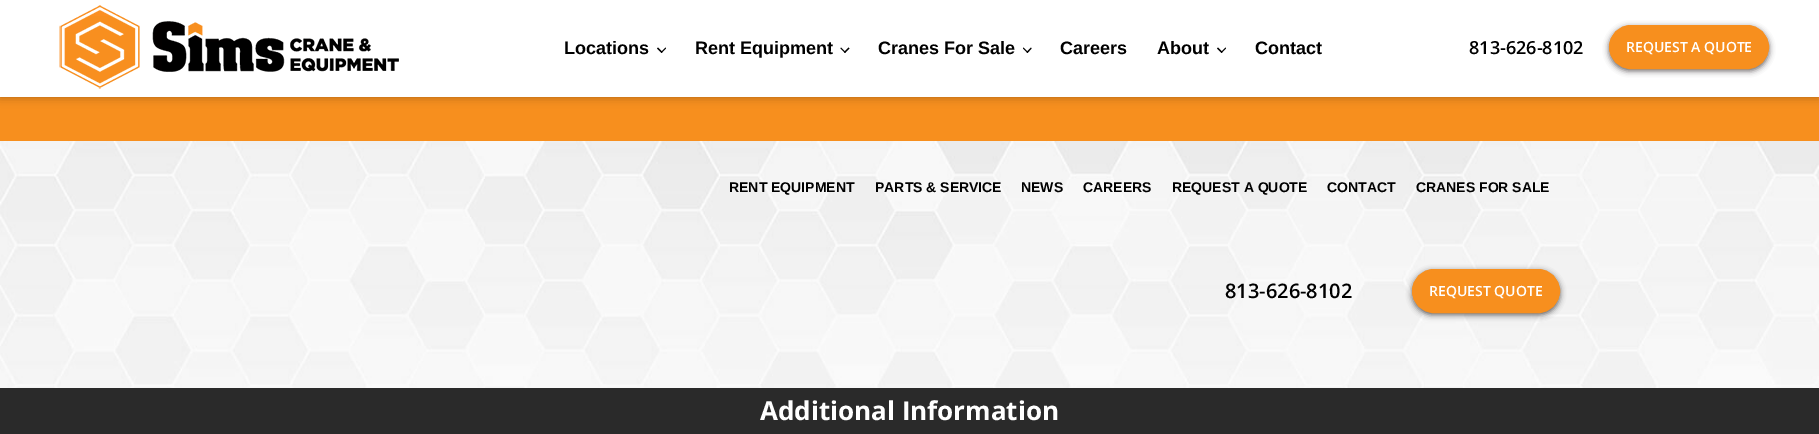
%!PS
<< /PageSize [1819 434] /PageUsesTransparency true >> setpagedevice
/rgb { 3 { 255 div 3 1 roll } repeat setrgbcolor } def
/font { [ exch dup neg 0 0 3 -1 roll 0 0 ] selectfont } def
/alpha { dup .setfillconstantalpha .setstrokeconstantalpha } def
/roundrect { 5 dict begin { /r /h /w /y /x } { exch def } forall
  x r add y moveto x w add y 2 copy h add r arct x w add y h add x 1 index r arct
  x y h add x y r arct x y 2 copy exch w add exch r arct closepath end } def
/shadow { 12 dict begin { /a /b /q /h /w /y /x } { exch def } forall gsave /was 0 def
  9 -2 -9 { dup b mul 4 div /e exch def 1 sub .425 mul 2.718 exch exp 1 add a .99 .min exch div /now exch def
    1 1 now sub 1 was sub div sub alpha /was now def
    w h .min e 2 mul add 0 gt { x e sub y e sub w e 2 mul add h e 2 mul add
      q e add b .6 mul add w h .min 2 div e add .min 0 .max roundrect fill } if } for grestore end } def
/picture { 5 dict begin { /h /w /y /x /name } { exch def } forall
  gsave x y translate w h scale
  w h 8 [w 0 0 h 0 0] name (r) file false 3 colorimage grestore end } def
0 .pushpdf14devicefilter
0 434 translate 1 -1 scale
4 setmiterlimit
255 255 255 rgb
0 0 1819 434 rectfill
247 143 30 rgb
0 97 1819 44 rectfill
0 0 0 rgb
0 0 1819 97 0 5 0.3 shadow
255 255 255 rgb
0 0 1819 97 rectfill
(img/1.rgb) 59 5 340 84 picture
0 0 0 rgb
666 48.5 moveto 661.5 53 lineto 661 52 lineto 665.5 47.5 lineto closepath fill
662.5 52 moveto 661.5 53 lineto 657 48.5 lineto 658 47.5 lineto closepath fill
849.5 48.5 moveto 845 53 lineto 844 52 lineto 848.5 47.5 lineto closepath fill
845.5 52 moveto 845 53 lineto 840.5 48.5 lineto 841 47.5 lineto closepath fill
1031.5 48.5 moveto 1027.5 53 lineto 1026.5 52 lineto 1031 47.5 lineto closepath fill
1028 52 moveto 1027.5 53 lineto 1023 48.5 lineto 1023.5 47.5 lineto closepath fill
1226 48.5 moveto 1221.5 53 lineto 1221 52 lineto 1225.5 47.5 lineto closepath fill
1222.5 52 moveto 1221.5 53 lineto 1217 48.5 lineto 1218 47.5 lineto closepath fill
35 31 32 rgb
1609 27 160 44 22 3 0.7 shadow
247 143 30 rgb
1609.5 25.5 159 43 21.5 roundrect gsave fill grestore
stroke
(img/2.rgb) 0 141 1819 247 picture
35 31 32 rgb
1412 271 148 44 22 3 0.7 shadow
247 143 30 rgb
1412.5 269.5 147 43 21.5 roundrect gsave fill grestore
stroke
42 42 42 rgb
0 388 1819 46 rectfill
/LiberationSans-Bold 18 font
0 0 0 rgb
[
  [(Locations) 564 54]
  [(Rent Equipment) 695 54]
  [(Cranes For Sale) 878 54]
  [(Careers) 1060 54]
  [(About) 1157 54]
  [(Contact) 1255 54]
] { aload pop moveto show } forall
/OpenSans-SemiBold 18 font
1469 54 moveto (813-626-8102) show
/OpenSans-SemiBold 14 font
255 255 255 rgb
1626 52 moveto (REQUEST A QUOTE) show
/LiberationSans-Bold 14 font
0 0 0 rgb
[
  [(RENT EQUIPMENT) 729 192]
  [(PARTS & SERVICE) 875 192]
  [(NEWS) 1021 192]
  [(CAREERS) 1083 192]
  [(REQUEST A QUOTE) 1172 192]
  [(CONTACT) 1327 192]
  [(CRANES FOR SALE) 1416 192]
] { aload pop moveto show } forall
/OpenSans-SemiBold 20 font
1225 298 moveto (813-626-8102) show
/OpenSans-SemiBold 14 font
255 255 255 rgb
1429 296 moveto (REQUEST QUOTE) show
/OpenSans-Bold 26 font
760 420 moveto (Additional Information) show
.poppdf14devicefilter showpage
